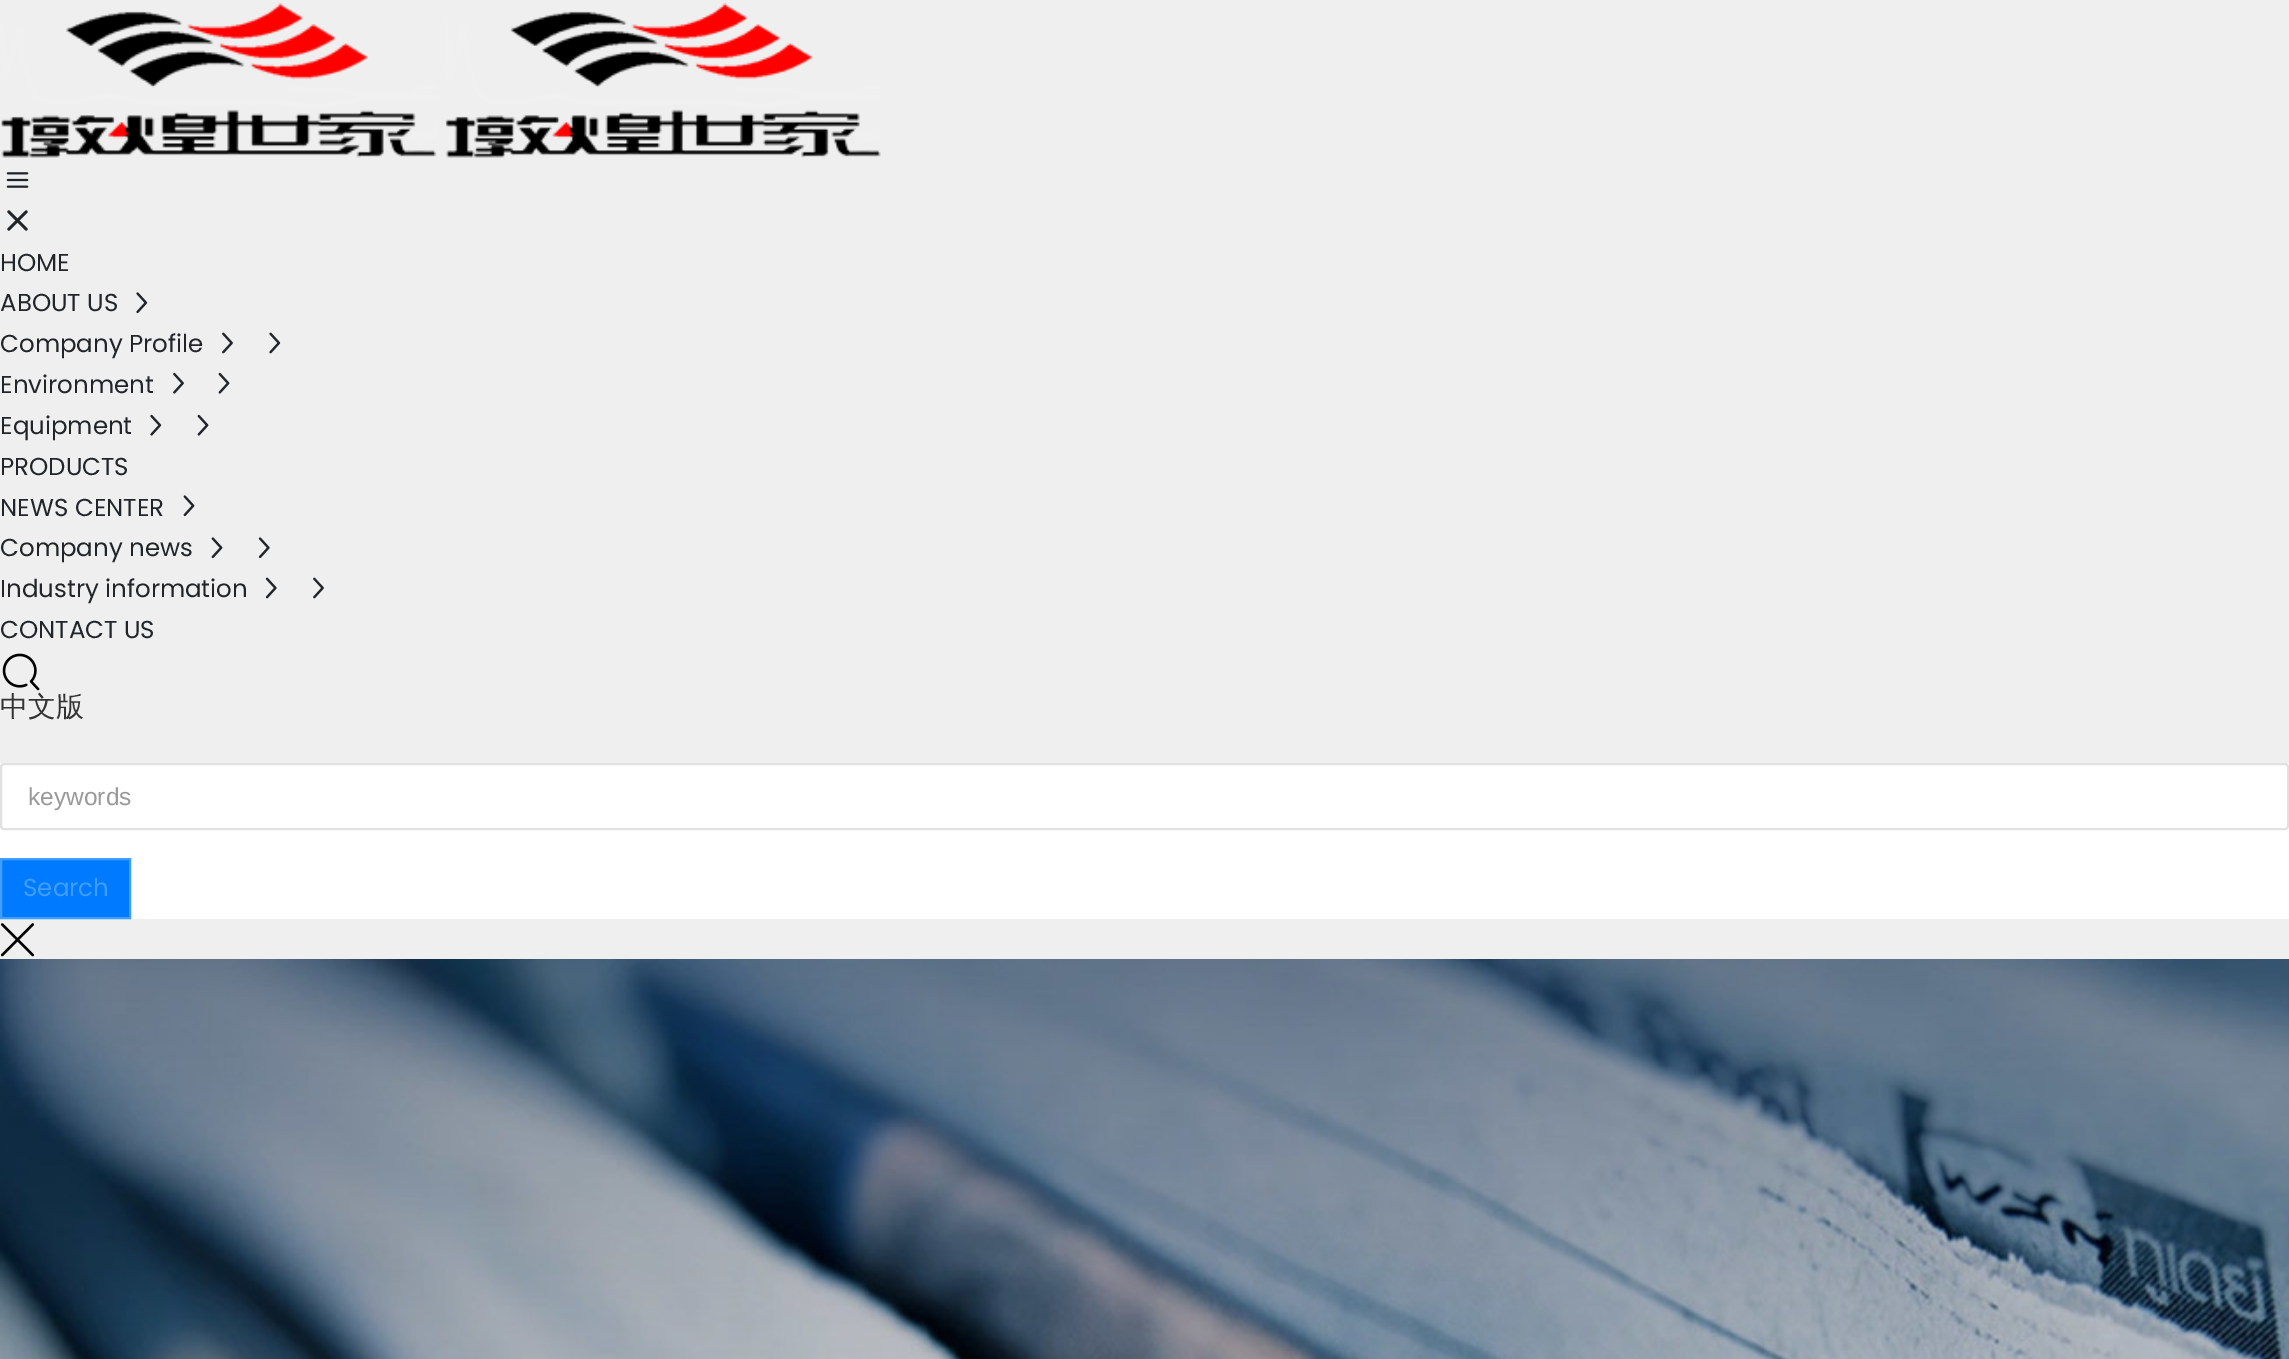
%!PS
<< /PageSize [2289 1359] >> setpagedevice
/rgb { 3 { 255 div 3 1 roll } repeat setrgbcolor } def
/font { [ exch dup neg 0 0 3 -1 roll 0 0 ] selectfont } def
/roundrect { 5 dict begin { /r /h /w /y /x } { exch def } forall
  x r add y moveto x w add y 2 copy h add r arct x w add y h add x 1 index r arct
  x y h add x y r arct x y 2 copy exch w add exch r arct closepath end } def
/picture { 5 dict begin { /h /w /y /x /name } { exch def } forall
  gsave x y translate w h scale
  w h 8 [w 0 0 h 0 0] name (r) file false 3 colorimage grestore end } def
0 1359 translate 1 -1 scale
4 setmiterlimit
239 239 239 rgb
0 0 2289 1359 rectfill
(img/1.rgb) 1 3 436 155 picture
(img/2.rgb) 445 3 436 155 picture
(img/3.rgb) 6 172 23 16 picture
(img/4.rgb) 7 210 21 21 picture
(img/5.rgb) 136 292 12 22 picture
(img/6.rgb) 222 332 11 22 picture
(img/7.rgb) 269 332 12 22 picture
(img/8.rgb) 173 372 11 22 picture
(img/9.rgb) 218 372 12 22 picture
(img/10.rgb) 150 414 12 22 picture
(img/9.rgb) 197 414 12 22 picture
(img/11.rgb) 183 495 12 22 picture
(img/11.rgb) 211 537 12 22 picture
(img/12.rgb) 258 537 12 22 picture
(img/13.rgb) 265 577 12 22 picture
(img/6.rgb) 313 577 11 22 picture
(img/14.rgb) 2 653 38 38 picture
255 255 255 rgb
0 763 2289 156 rectfill
225 225 225 rgb
2 setlinewidth
1 764 2287 65 3 roundrect stroke
0 123 255 rgb
1 859 moveto 130 859 lineto 130 918 lineto 1 918 lineto closepath gsave fill grestore
64 158 255 rgb
stroke
(img/15.rgb) 0 923 35 34 picture
(img/16.rgb) 0 959 2289 400 picture
/Poppins-Regular 24.5 font
33 37 41 rgb
[
  [(HOME) 0 271]
  [(ABOUT US) 0 311]
  [(Company Profile) 0 352]
  [(Environment) 0 393]
  [(Equipment) 0 434]
  [(PRODUCTS) 0 475]
  [(NEWS CENTER) 0 516]
  [(Company news) 0 556]
  [(Industry information) 0 597]
  [(CONTACT US) 0 638]
] { aload pop moveto show } forall
/WenQuanYiZenHei-Medium 28 font
51 51 51 rgb
0 716 moveto (中文版) show
/LiberationSans-Regular 24.5 font
153 153 153 rgb
28 805 moveto (keywords) show
/Poppins-Regular 24.5 font
64 158 255 rgb
23 896 moveto (Search) show
showpage
